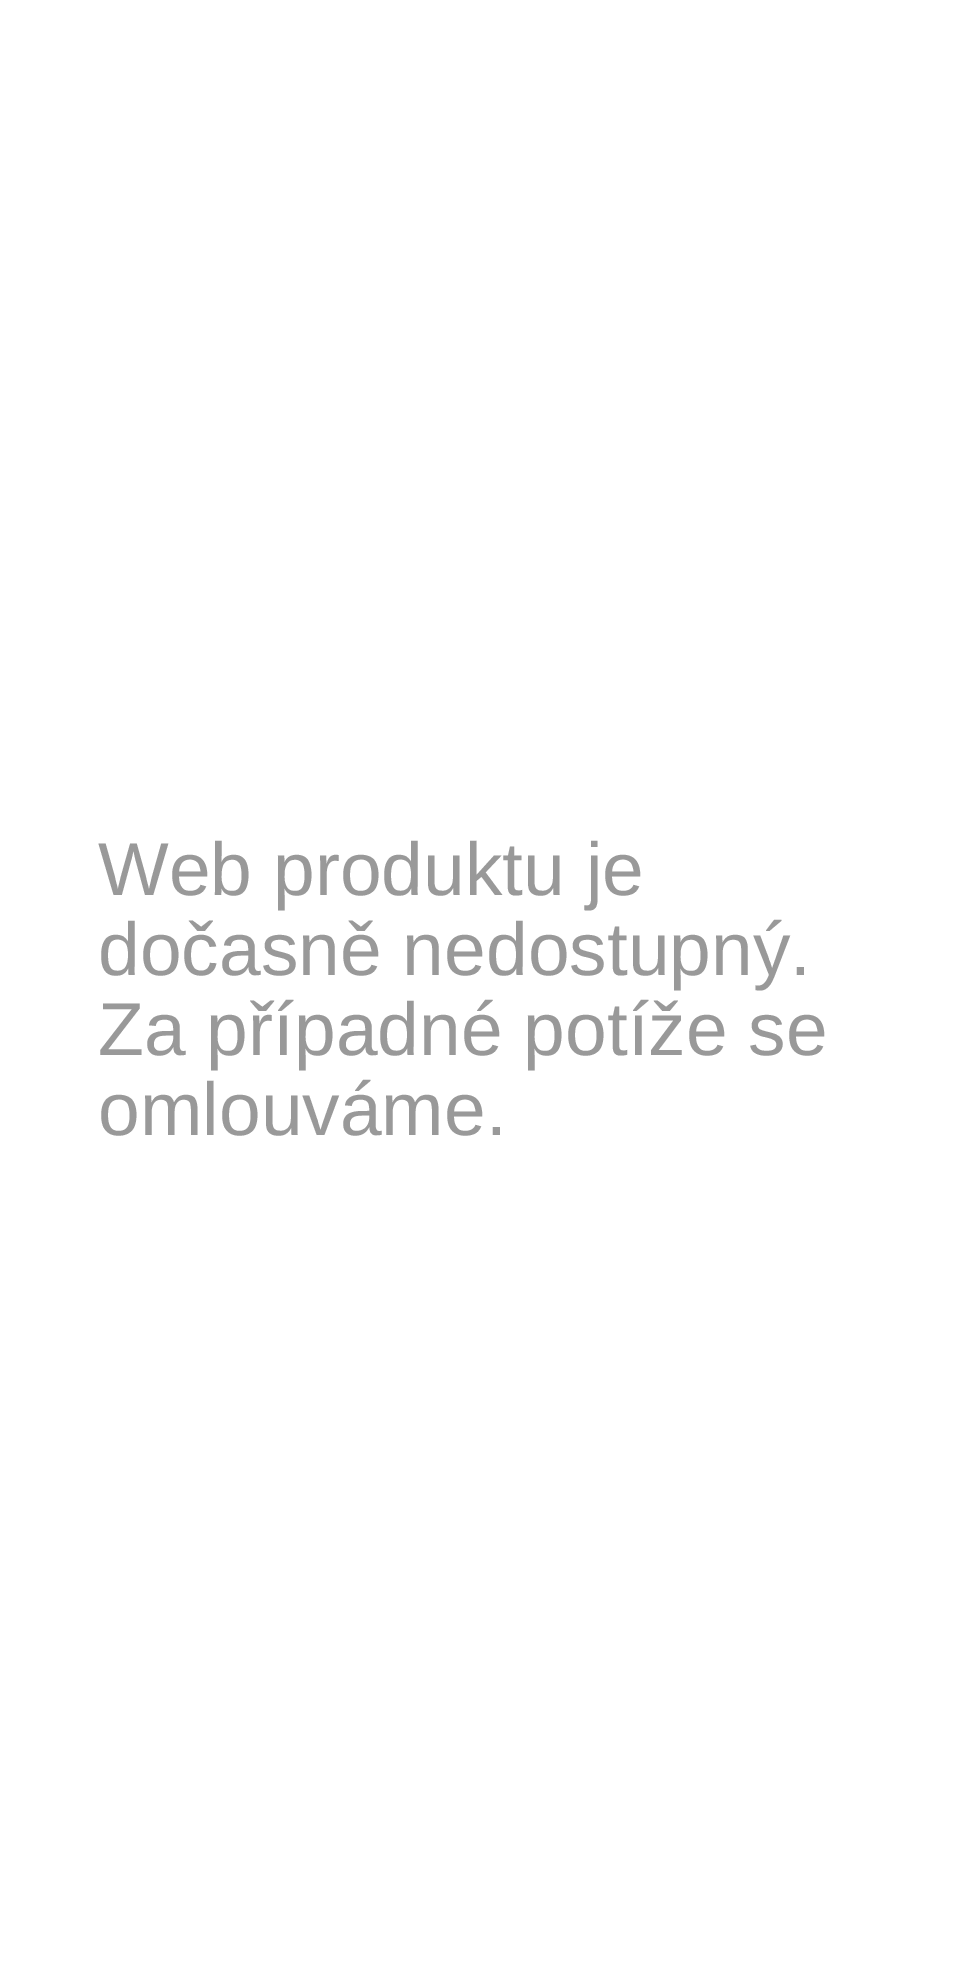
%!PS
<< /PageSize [980 1980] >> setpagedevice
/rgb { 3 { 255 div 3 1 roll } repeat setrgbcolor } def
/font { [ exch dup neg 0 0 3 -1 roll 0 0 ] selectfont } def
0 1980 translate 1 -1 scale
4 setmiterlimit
255 255 255 rgb
0 0 980 1980 rectfill
/LiberationSans-Regular 75 font
153 153 153 rgb
[
  [(Web produktu je) 98 895]
  [(dočasně nedostupný.) 98 975]
  [(Za případné potíže se) 98 1055]
  [(omlouváme.) 98 1135]
] { aload pop moveto show } forall
showpage
